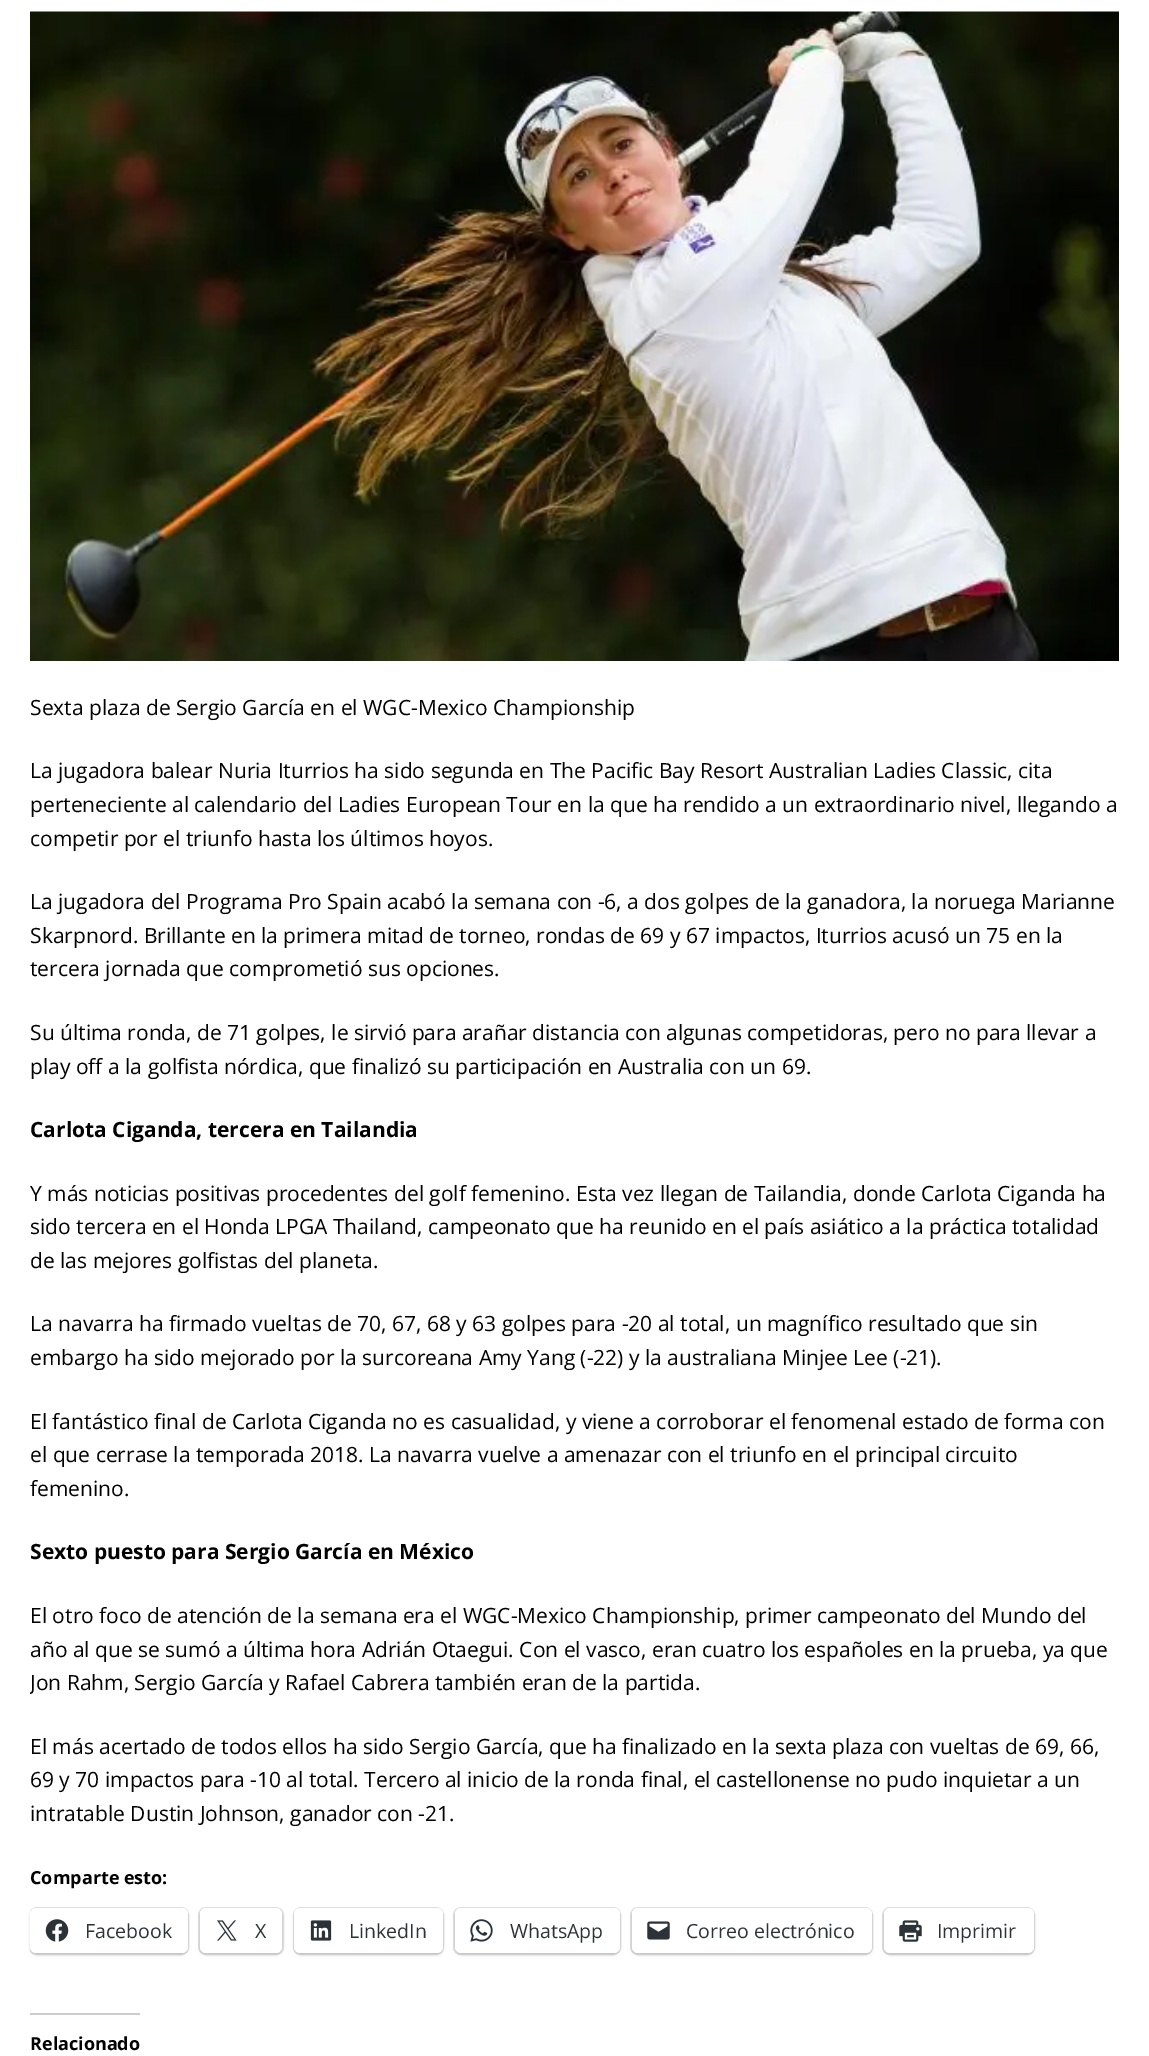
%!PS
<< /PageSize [1149 2056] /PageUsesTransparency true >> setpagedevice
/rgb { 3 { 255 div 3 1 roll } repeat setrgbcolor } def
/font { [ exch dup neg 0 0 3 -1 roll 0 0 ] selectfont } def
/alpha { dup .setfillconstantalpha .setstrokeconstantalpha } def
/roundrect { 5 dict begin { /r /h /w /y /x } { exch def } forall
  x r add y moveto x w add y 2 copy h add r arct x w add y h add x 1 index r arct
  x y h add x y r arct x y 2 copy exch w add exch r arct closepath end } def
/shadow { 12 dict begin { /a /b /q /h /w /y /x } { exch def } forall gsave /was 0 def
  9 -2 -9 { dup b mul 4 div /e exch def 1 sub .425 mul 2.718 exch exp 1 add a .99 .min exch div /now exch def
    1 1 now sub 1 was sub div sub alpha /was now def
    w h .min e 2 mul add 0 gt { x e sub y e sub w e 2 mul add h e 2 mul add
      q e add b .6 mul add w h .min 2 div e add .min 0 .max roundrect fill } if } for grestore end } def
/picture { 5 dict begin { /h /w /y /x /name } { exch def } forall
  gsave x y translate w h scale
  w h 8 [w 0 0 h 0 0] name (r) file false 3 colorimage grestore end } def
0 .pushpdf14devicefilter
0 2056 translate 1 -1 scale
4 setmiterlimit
255 255 255 rgb
0 0 1149 2056 rectfill
(img/1.rgb) 30 11 1089 650 picture
gsave
30 0 1089 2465 rectclip
224 224 224 rgb
2 setlinewidth
30 1908 158 46 7 roundrect stroke
grestore
gsave
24 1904 moveto 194 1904 lineto 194 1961 lineto 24 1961 lineto closepath 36 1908 moveto 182 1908 lineto 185.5 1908 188 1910.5 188 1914 curveto 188 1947 lineto 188 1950.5 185.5 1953 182 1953 curveto 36 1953 lineto 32.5 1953 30 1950.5 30 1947 curveto 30 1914 lineto 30 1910.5 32.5 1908 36 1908 curveto closepath eoclip newpath
0 0 0 rgb
30 1910 158 45 6 1.5 0.12 shadow
grestore
30 1908 158 45 6 roundrect fill
(img/2.rgb) 45 1919 24 23 picture
224 224 224 rgb
2 setlinewidth
199 1908 84 46 7 roundrect stroke
0 0 0 rgb
200 1910 82 45 6 1.5 0.12 shadow
255 255 255 rgb
200 1908 82 45 6 roundrect fill
(img/3.rgb) 217 1920 20 21 picture
224 224 224 rgb
294 1908 149 46 7 roundrect stroke
0 0 0 rgb
294 1910 149 45 6 1.5 0.12 shadow
255 255 255 rgb
294 1908 149 45 6 roundrect fill
(img/4.rgb) 310 1920 22 21 picture
224 224 224 rgb
454 1908 166 46 7 roundrect stroke
0 0 0 rgb
455 1910 165 45 6 1.5 0.12 shadow
255 255 255 rgb
455 1908 165 45 6 roundrect fill
(img/5.rgb) 470 1919 23 23 picture
224 224 224 rgb
631 1908 241 46 7 roundrect stroke
0 0 0 rgb
632 1910 240 45 6 1.5 0.12 shadow
255 255 255 rgb
632 1908 240 45 6 roundrect fill
(img/6.rgb) 647 1921 23 19 picture
224 224 224 rgb
883 1908 151 46 7 roundrect stroke
0 0 0 rgb
884 1910 150 45 6 1.5 0.12 shadow
255 255 255 rgb
884 1908 150 45 6 roundrect fill
(img/7.rgb) 899 1920 23 22 picture
204 204 204 rgb
30 2013 110 2 rectfill
/OpenSans-Regular 21 font
0 0 0 rgb
[
  [(Sexta plaza de Sergio García en el WGC-Mexico Championship) 30 715]
  [(La jugadora balear Nuria Iturrios ha sido segunda en The Pacific Bay Resort Australian Ladies Classic, cita) 30 778]
  [(perteneciente al calendario del Ladies European Tour en la que ha rendido a un extraordinario nivel, llegando a) 30 812]
  [(competir por el triunfo hasta los últimos hoyos.) 30 846]
  [(La jugadora del Programa Pro Spain acabó la semana con -6, a dos golpes de la ganadora, la noruega Marianne) 30 909]
  [(Skarpnord. Brillante en la primera mitad de torneo, rondas de 69 y 67 impactos, Iturrios acusó un 75 en la) 30 943]
  [(tercera jornada que comprometió sus opciones.) 30 976]
  [(Su última ronda, de 71 golpes, le sirvió para arañar distancia con algunas competidoras, pero no para llevar a) 30 1040]
  [(play off a la golfista nórdica, que finalizó su participación en Australia con un 69.) 30 1074]
] { aload pop moveto show } forall
/OpenSans-Bold 21 font
30 1137 moveto (Carlota Ciganda, tercera en Tailandia) show
/OpenSans-Regular 21 font
[
  [(Y más noticias positivas procedentes del golf femenino. Esta vez llegan de Tailandia, donde Carlota Ciganda ha) 30 1201]
  [(sido tercera en el Honda LPGA Thailand, campeonato que ha reunido en el país asiático a la práctica totalidad) 30 1234]
  [(de las mejores golfistas del planeta.) 30 1268]
  [(La navarra ha firmado vueltas de 70, 67, 68 y 63 golpes para -20 al total, un magnífico resultado que sin) 30 1331]
  [(embargo ha sido mejorado por la surcoreana Amy Yang \(-22\) y la australiana Minjee Lee \(-21\).) 30 1365]
  [(El fantástico final de Carlota Ciganda no es casualidad, y viene a corroborar el fenomenal estado de forma con) 30 1429]
  [(el que cerrase la temporada 2018. La navarra vuelve a amenazar con el triunfo en el principal circuito) 30 1462]
  [(femenino.) 30 1496]
] { aload pop moveto show } forall
/OpenSans-Bold 21 font
30 1559 moveto (Sexto puesto para Sergio García en México) show
/OpenSans-Regular 21 font
30 1623 moveto (El otro foco de atención de la semana era el WGC-Mexico Championship, primer campeonato del Mundo del) show
30 1657 moveto (año al que se sumó a última hora Adrián Otaegui. Con el vasco, eran cuatro los españoles en la prueba, ya que) show
gsave
30 0 1089 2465 rectclip
30 1690 moveto (Jon Rahm, Sergio García y Rafael Cabrera también eran de la partida.) show
grestore
[
  [(El más acertado de todos ellos ha sido Sergio García, que ha finalizado en la sexta plaza con vueltas de 69, 66,) 30 1754]
  [(69 y 70 impactos para -10 al total. Tercero al inicio de la ronda final, el castellonense no pudo inquietar a un) 30 1787]
  [(intratable Dustin Johnson, ganador con -21.) 30 1821]
] { aload pop moveto show } forall
/OpenSans-Bold 18 font
30 1884 moveto (Comparte esto:) show
/OpenSans-Regular 19.5 font
44 51 56 rgb
[
  [(Facebook) 85 1938]
  [(X) 255 1938]
  [(LinkedIn) 349 1938]
  [(WhatsApp) 510 1938]
  [(Correo electrónico) 686 1938]
  [(Imprimir) 937 1938]
] { aload pop moveto show } forall
/OpenSans-Bold 18 font
0 0 0 rgb
30 2050 moveto (Relacionado) show
.poppdf14devicefilter showpage
